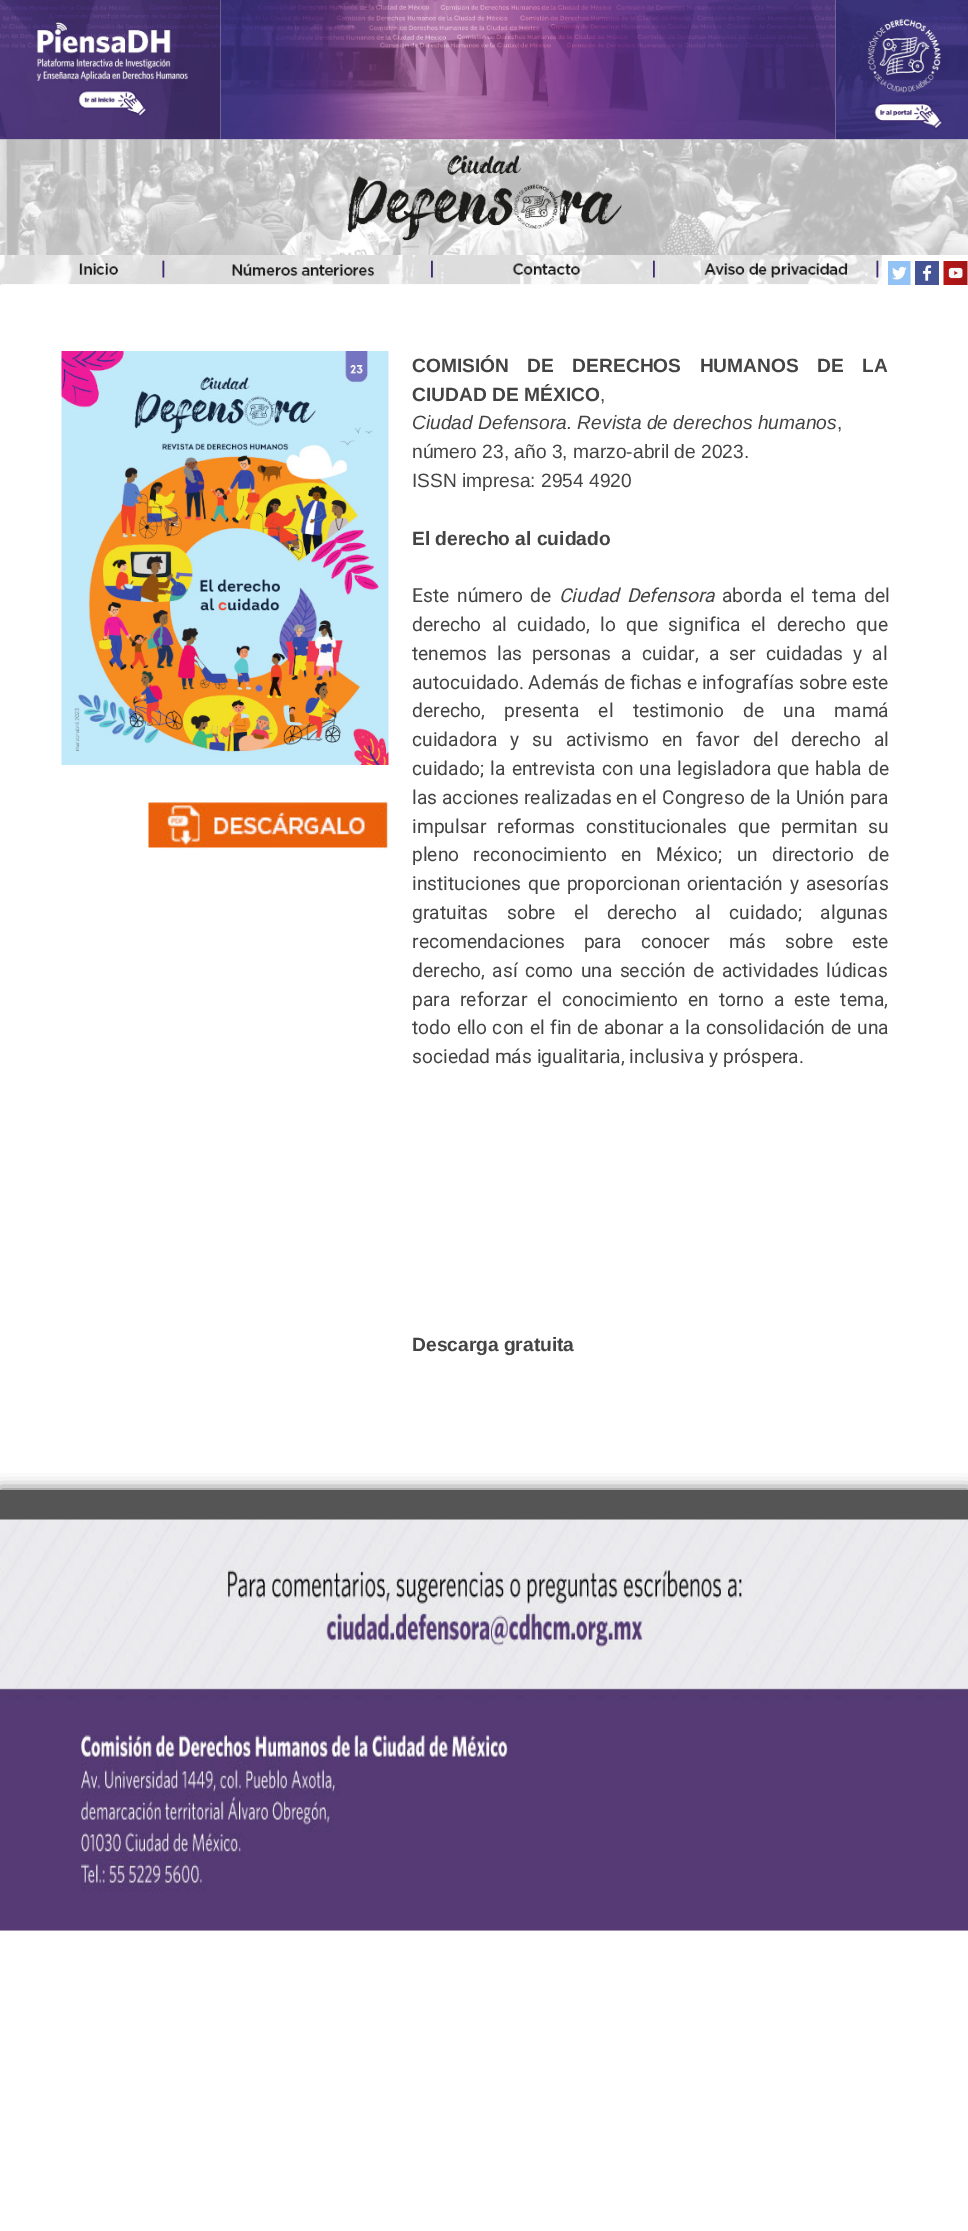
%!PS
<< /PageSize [968 2231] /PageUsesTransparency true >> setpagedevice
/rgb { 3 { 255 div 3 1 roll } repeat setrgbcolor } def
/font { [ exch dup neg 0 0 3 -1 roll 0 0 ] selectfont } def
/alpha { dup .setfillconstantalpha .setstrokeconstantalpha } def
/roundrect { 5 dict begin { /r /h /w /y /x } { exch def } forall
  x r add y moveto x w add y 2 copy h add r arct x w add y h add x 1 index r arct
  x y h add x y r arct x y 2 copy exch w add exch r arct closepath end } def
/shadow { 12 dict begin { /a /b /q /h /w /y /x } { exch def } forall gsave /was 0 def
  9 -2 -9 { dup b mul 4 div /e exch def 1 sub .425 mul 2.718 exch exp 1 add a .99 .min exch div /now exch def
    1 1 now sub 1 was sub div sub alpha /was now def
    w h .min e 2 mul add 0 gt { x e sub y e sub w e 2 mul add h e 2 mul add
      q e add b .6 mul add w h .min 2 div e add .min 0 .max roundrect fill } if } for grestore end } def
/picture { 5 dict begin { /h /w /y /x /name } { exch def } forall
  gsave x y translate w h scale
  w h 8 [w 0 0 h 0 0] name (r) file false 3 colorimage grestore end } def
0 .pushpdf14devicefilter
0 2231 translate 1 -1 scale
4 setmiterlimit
255 255 255 rgb
0 0 968 2231 rectfill
238 238 238 rgb
0 1930 968 1 rectfill
(img/1.rgb) 0 0 221 140 picture
(img/2.rgb) 220 0 616 140 picture
(img/3.rgb) 835 0 133 140 picture
(img/4.rgb) 0 139 968 116 picture
(img/5.rgb) 0 255 168 30 picture
(img/6.rgb) 168 255 269 30 picture
(img/7.rgb) 436 255 223 30 picture
(img/8.rgb) 658 255 224 30 picture
(img/9.rgb) 888 261 23 24 picture
(img/10.rgb) 915 261 24 24 picture
(img/11.rgb) 943 261 25 24 picture
(img/12.rgb) 61 351 328 414 picture
(img/13.rgb) 148 801 241 49 picture
85 85 85 rgb
0 1490 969 30 0 7.5 1 shadow
0 1490 968 30 rectfill
(img/14.rgb) 0 1519 968 412 picture
/LiberationSans-Bold 19.2 font
68 68 68 rgb
412 372 moveto 13 0 32 (COMISIÓN DE DERECHOS HUMANOS DE LA) widthshow
412 401 moveto (CIUDAD DE MÉXICO) show
/LiberationSans-Regular 19.2 font
600 401 moveto (,) show
/LiberationSans-Italic 19.2 font
412 429 moveto (Ciudad Defensora. Revista de derechos humanos) show
/LiberationSans-Regular 19.2 font
[
  [(,) 837 429]
  [(número 23, año 3, marzo-abril de 2023.) 412 458]
  [(ISSN impresa: 2954 4920) 412 487]
] { aload pop moveto show } forall
/LiberationSans-Bold 19.2 font
412 545 moveto (El derecho al cuidado) show
/Roboto-Regular 19.2 font
412 602 moveto 3 0 32 (Este número de) widthshow
/Roboto-Italic 19.2 font
559 602 moveto 3 0 32 (Ciudad Defensora) widthshow
/Roboto-Regular 19.2 font
722 602 moveto 3 0 32 (aborda el tema del) widthshow
412 631 moveto 5.75 0 32 (derecho al cuidado, lo que significa el derecho que) widthshow
412 660 moveto 5.25 0 32 (tenemos las personas a cuidar, a ser cuidadas y al) widthshow
412 689 moveto (autocuidado. Además de fichas e infografías sobre este) show
412 717 moveto 14.5 0 32 (derecho, presenta el testimonio de una mamá) widthshow
412 746 moveto 8.25 0 32 (cuidadora y su activismo en favor del derecho al) widthshow
412 775 moveto 1.25 0 32 (cuidado; la entrevista con una legisladora que habla de) widthshow
412 804 moveto 0.25 0 32 (las acciones realizadas en el Congreso de la Unión para) widthshow
412 833 moveto 6.25 0 32 (impulsar reformas constitucionales que permitan su) widthshow
412 861 moveto 9.5 0 32 (pleno reconocimiento en México; un directorio de) widthshow
412 890 moveto 2 0 32 (instituciones que proporcionan orientación y asesorías) widthshow
412 919 moveto 14 0 32 (gratuitas sobre el derecho al cuidado; algunas) widthshow
412 948 moveto 14 0 32 (recomendaciones para conocer más sobre este) widthshow
412 977 moveto 2.5 0 32 (derecho, así como una sección de actividades lúdicas) widthshow
412 1006 moveto 5 0 32 (para reforzar el conocimiento en torno a este tema,) widthshow
412 1034 moveto 0.75 0 32 (todo ello con el fin de abonar a la consolidación de una) widthshow
412 1063 moveto (sociedad más igualitaria, inclusiva y próspera.) show
/LiberationSans-Bold 19.2 font
412 1351 moveto (Descarga gratuita) show
.poppdf14devicefilter showpage
